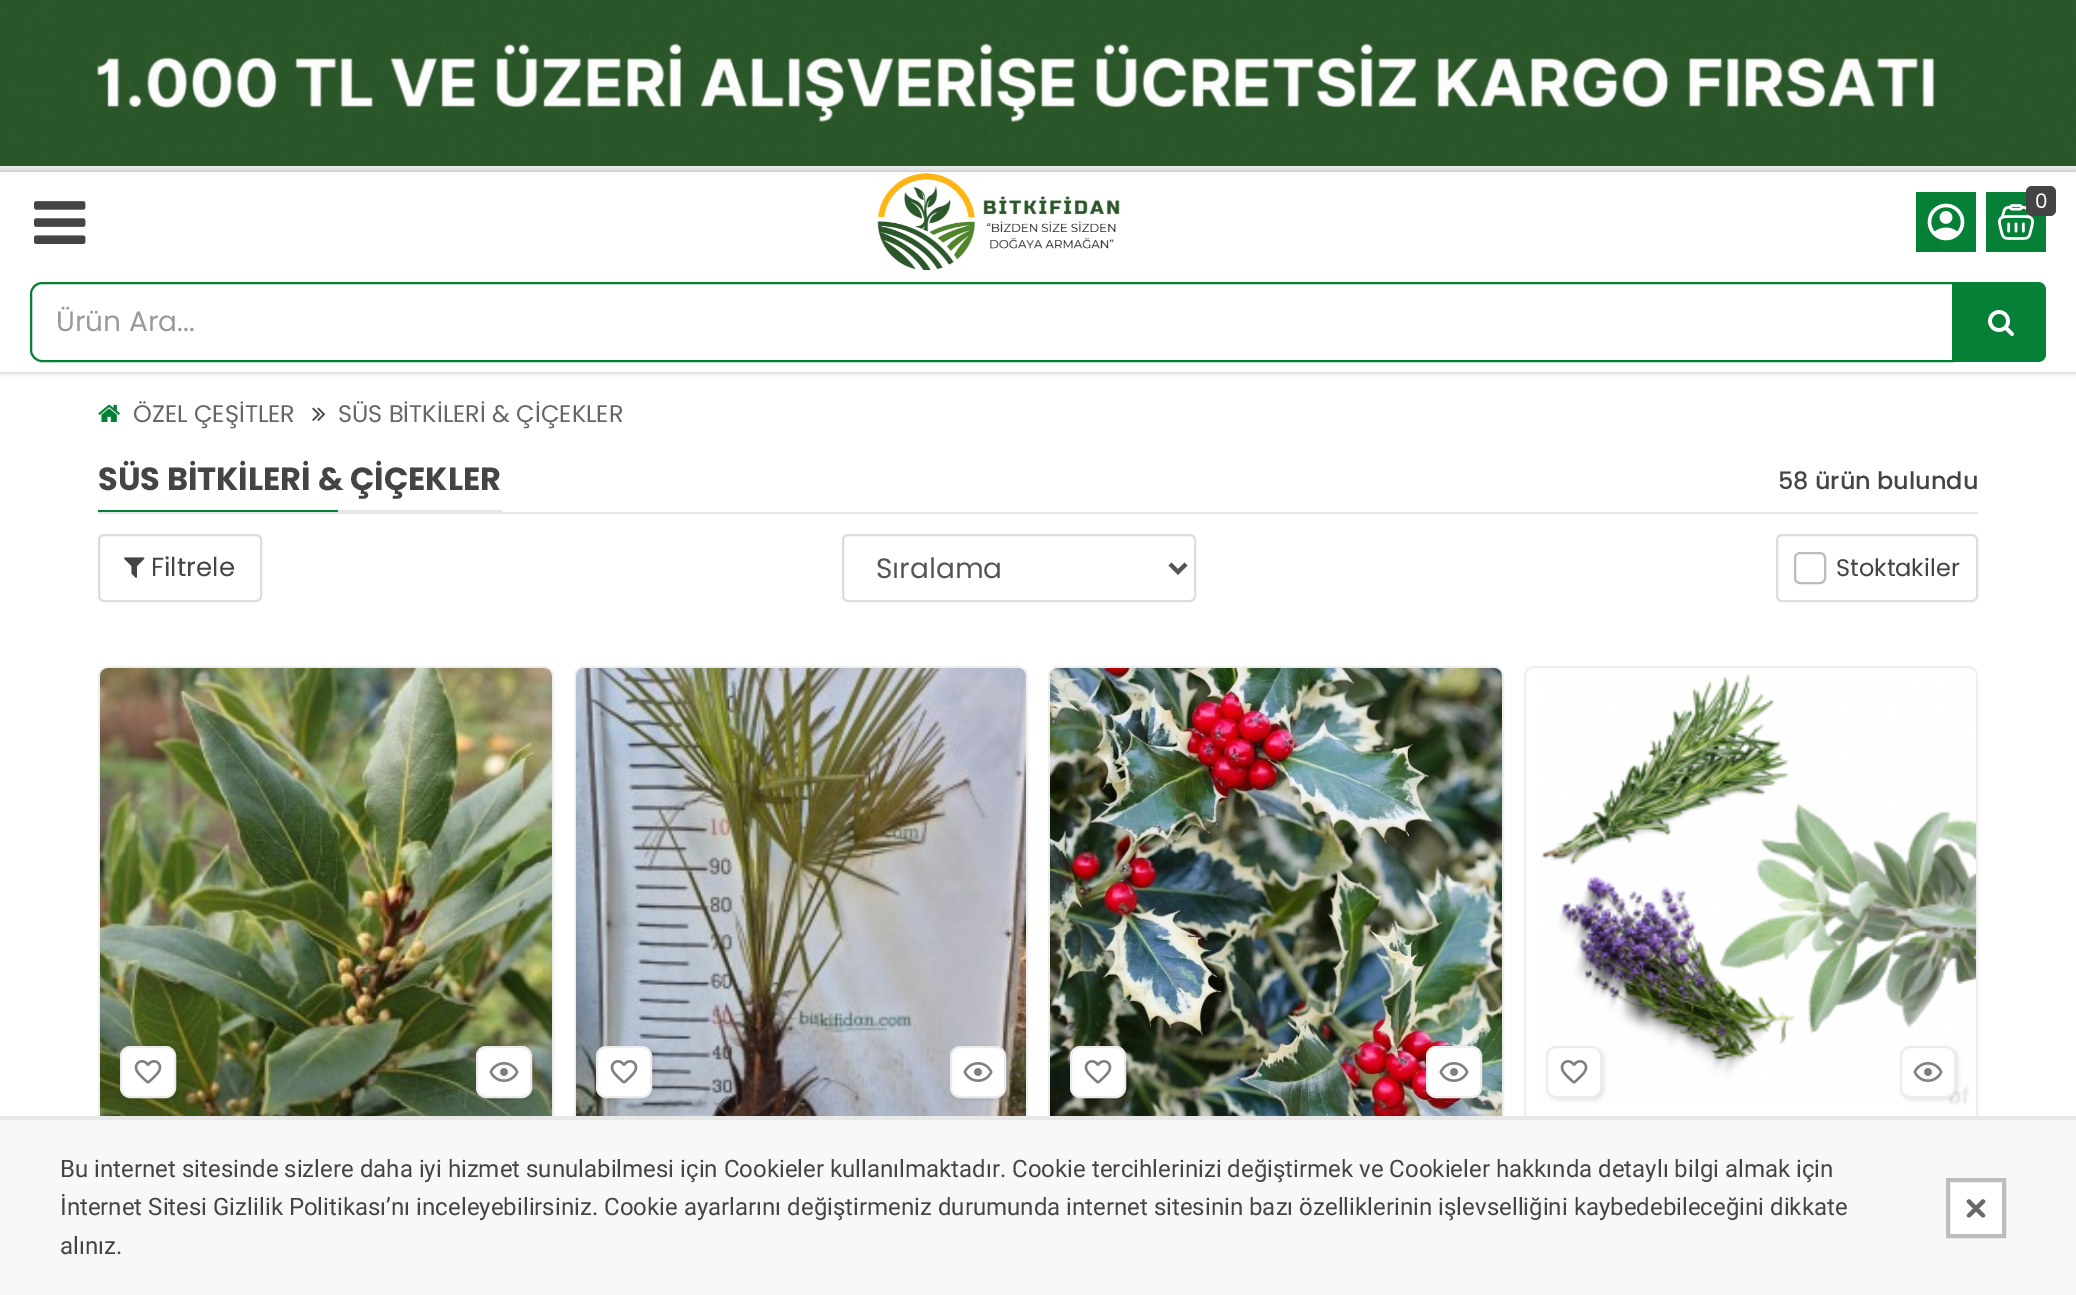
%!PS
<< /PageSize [2076 1295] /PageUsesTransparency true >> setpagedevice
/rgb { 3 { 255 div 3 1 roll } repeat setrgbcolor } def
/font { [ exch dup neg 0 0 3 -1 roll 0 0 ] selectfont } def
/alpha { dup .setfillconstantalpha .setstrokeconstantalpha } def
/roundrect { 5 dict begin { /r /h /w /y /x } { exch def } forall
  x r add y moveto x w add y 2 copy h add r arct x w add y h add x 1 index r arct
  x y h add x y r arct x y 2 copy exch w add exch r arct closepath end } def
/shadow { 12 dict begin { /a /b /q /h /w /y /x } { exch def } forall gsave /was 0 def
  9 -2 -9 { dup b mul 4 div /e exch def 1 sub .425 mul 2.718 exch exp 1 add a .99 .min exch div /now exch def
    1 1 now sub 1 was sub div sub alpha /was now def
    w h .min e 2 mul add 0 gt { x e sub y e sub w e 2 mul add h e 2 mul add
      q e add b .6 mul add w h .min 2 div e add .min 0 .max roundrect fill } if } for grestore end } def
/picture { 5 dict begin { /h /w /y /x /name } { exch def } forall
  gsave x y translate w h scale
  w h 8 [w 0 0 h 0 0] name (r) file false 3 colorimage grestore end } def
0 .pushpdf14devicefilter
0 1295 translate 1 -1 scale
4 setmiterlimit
255 255 255 rgb
0 0 2076 1295 rectfill
237 239 241 rgb
0 166 2076 6 rectfill
(img/1.rgb) 0 0 2076 166 picture
gsave
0 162 moveto 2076 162 lineto 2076 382 lineto 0 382 lineto closepath 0 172 moveto 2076 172 lineto 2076 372 lineto 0 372 lineto closepath eoclip newpath
0 0 0 rgb
0 172 2076 200 0 3 0.3 shadow
grestore
(img/2.rgb) 34 201 52 43 picture
(img/3.rgb) 877 173 243 98 picture
7 128 55 rgb
1916 192 60 60 rectfill
(img/4.rgb) 1927 203 38 38 picture
1986 192 60 60 rectfill
(img/5.rgb) 1998 204 36 36 picture
68 68 68 rgb
2026 186 30 30 6 roundrect fill
7 128 55 rgb
2 setlinewidth
42 283 moveto 1953 283 lineto 1953 361 lineto 42 361 lineto 36 361 31 356 31 350 curveto 31 294 lineto 31 288 36 283 42 283 curveto closepath stroke
1954 282 moveto 2038 282 lineto 2042.5 282 2046 285.5 2046 290 curveto 2046 354 lineto 2046 358.5 2042.5 362 2038 362 curveto 1954 362 lineto closepath fill
(img/6.rgb) 1988 310 26 26 picture
(img/7.rgb) 98 404 22 18 picture
(img/8.rgb) 312 407 14 14 picture
[
  [98 512 1880 2 230 230 230]
  [338 510 164 2 230 230 230]
  [98 510 240 2 7 128 55]
] { aload pop rgb rectfill } forall
221 221 221 rgb
99 535 162 66 5 roundrect stroke
(img/9.rgb) 124 557 21 21 picture
843 535 352 66 5 roundrect stroke
85 85 85 rgb
4 setlinewidth
1170 564 moveto 1178 572 lineto 1186 564 lineto stroke
221 221 221 rgb
2 setlinewidth
1777 535 200 66 5 roundrect stroke
187 187 187 rgb
1795 553 30 30 5 roundrect stroke
239 239 239 rgb
99 667 454 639 9 roundrect stroke
(img/10.rgb) 100 668 452 448 picture
0 0 0 rgb
122 1048 56 52 10 2 0.1 shadow
255 255 255 rgb
121 1047 54 50 9 roundrect gsave fill grestore
236 236 236 rgb
stroke
(img/11.rgb) 134 1060 28 24 picture
0 0 0 rgb
478 1048 56 52 10 2 0.1 shadow
255 255 255 rgb
477 1047 54 50 9 roundrect gsave fill grestore
236 236 236 rgb
stroke
(img/12.rgb) 489 1062 30 20 picture
239 239 239 rgb
575 667 452 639 9 roundrect stroke
(img/13.rgb) 576 668 450 448 picture
0 0 0 rgb
598 1048 56 52 10 2 0.1 shadow
255 255 255 rgb
597 1047 54 50 9 roundrect gsave fill grestore
236 236 236 rgb
stroke
(img/11.rgb) 610 1060 28 24 picture
0 0 0 rgb
952 1048 56 52 10 2 0.1 shadow
255 255 255 rgb
951 1047 54 50 9 roundrect gsave fill grestore
236 236 236 rgb
stroke
(img/12.rgb) 963 1062 30 20 picture
239 239 239 rgb
1049 667 454 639 9 roundrect stroke
(img/14.rgb) 1050 668 452 448 picture
0 0 0 rgb
1072 1048 56 52 10 2 0.1 shadow
255 255 255 rgb
1071 1047 54 50 9 roundrect gsave fill grestore
236 236 236 rgb
stroke
(img/11.rgb) 1084 1060 28 24 picture
0 0 0 rgb
1428 1048 56 52 10 2 0.1 shadow
255 255 255 rgb
1427 1047 54 50 9 roundrect gsave fill grestore
236 236 236 rgb
stroke
(img/12.rgb) 1439 1062 30 20 picture
239 239 239 rgb
1525 667 452 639 9 roundrect stroke
(img/15.rgb) 1541 673 435 432 picture
0 0 0 rgb
1548 1048 56 52 10 2 0.1 shadow
255 255 255 rgb
1547 1047 54 50 9 roundrect gsave fill grestore
236 236 236 rgb
stroke
(img/11.rgb) 1560 1060 28 24 picture
0 0 0 rgb
1902 1048 56 52 10 2 0.1 shadow
255 255 255 rgb
1901 1047 54 50 9 roundrect gsave fill grestore
236 236 236 rgb
stroke
(img/12.rgb) 1913 1062 30 20 picture
248 248 248 rgb
0 1120 2076 175 rectfill
232 232 232 rgb
0 1116 2076 4 rectfill
255 255 255 rgb
1948 1180 moveto 2004 1180 lineto 2004 1236 lineto 1948 1236 lineto closepath gsave fill grestore
189 189 189 rgb
4 setlinewidth
stroke
105 105 105 rgb
1970.5 1200 moveto 1984.5 1214 lineto 1985.5 1215 1985.5 1216 1984.5 1217 curveto 1983.5 1217.5 1982.5 1217.5 1981.5 1217 curveto 1967.5 1203 lineto 1966.5 1202 1966.5 1200.5 1967.5 1200 curveto 1968.5 1199 1969.5 1199 1970.5 1200 curveto closepath fill
1967.5 1214 moveto 1981.5 1200 lineto 1982.5 1199 1983.5 1199 1984.5 1200 curveto 1985.5 1200.5 1985.5 1202 1984.5 1203 curveto 1970.5 1217 lineto 1969.5 1217.5 1968.5 1217.5 1967.5 1217 curveto 1966.5 1216 1966.5 1215 1967.5 1214 curveto closepath fill
/Poppins-Regular 20 font
255 255 255 rgb
2035 208 moveto (0) show
/Poppins-Regular 28 font
153 153 153 rgb
56 331 moveto (Ürün Ara...) show
/Poppins-Regular 24 font
102 102 102 rgb
133 422 moveto (ÖZEL ÇEŞİTLER) show
338 422 moveto (SÜS BİTKİLERİ & ÇİÇEKLER) show
/Poppins-Bold 32 font
68 68 68 rgb
98 490 moveto (SÜS BİTKİLERİ & ÇİÇEKLER) show
/Poppins-Medium 24 font
1778 489 moveto (58 ürün bulundu) show
/Poppins-Regular 26 font
151 576 moveto (Filtrele) show
/Poppins-Regular 28 font
85 85 85 rgb
876 578 moveto (Sıralama) show
/Poppins-Regular 24 font
68 68 68 rgb
1836 576 moveto (Stoktakiler) show
/Roboto-Regular 24 font
[
  [(Bu internet sitesinde sizlere daha iyi hizmet sunulabilmesi için Cookieler kullanılmaktadır. Cookie tercihlerinizi değiştirmek ve Cookieler hakkında detaylı bilgi almak için) 60 1177]
  [(İnternet Sitesi Gizlilik Politikası’nı inceleyebilirsiniz. Cookie ayarlarını değiştirmeniz durumunda internet sitesinin bazı özelliklerinin işlevselliğini kaybedebileceğini dikkate) 60 1215]
  [(alınız.) 60 1254]
] { aload pop moveto show } forall
.poppdf14devicefilter showpage
